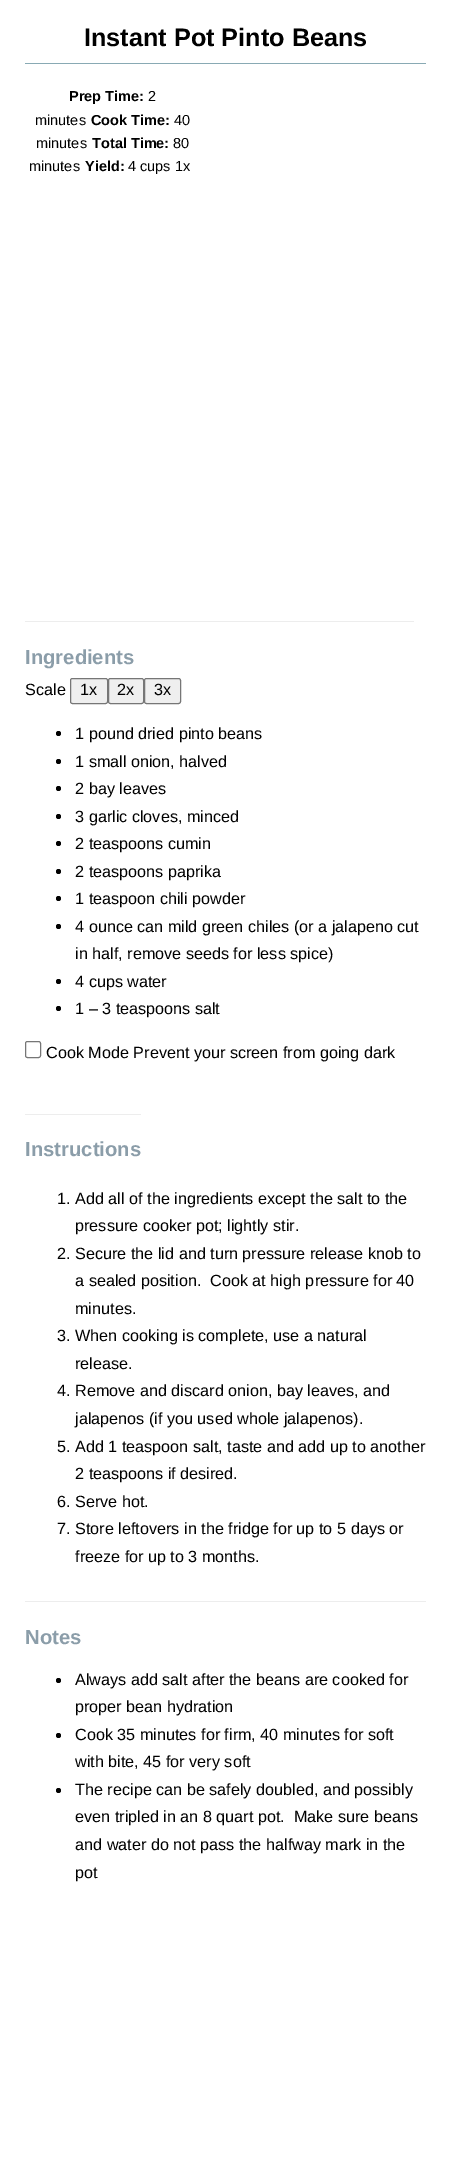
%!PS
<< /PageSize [451 2182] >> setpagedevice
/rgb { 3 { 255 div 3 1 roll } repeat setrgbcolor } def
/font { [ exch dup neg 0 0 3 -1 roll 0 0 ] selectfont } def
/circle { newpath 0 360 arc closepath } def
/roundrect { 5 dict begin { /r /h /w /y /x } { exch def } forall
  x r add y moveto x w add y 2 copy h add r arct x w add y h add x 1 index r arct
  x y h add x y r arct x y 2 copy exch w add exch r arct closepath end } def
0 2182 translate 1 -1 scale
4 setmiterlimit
255 255 255 rgb
0 0 451 2182 rectfill
137 170 180 rgb
25 63 401 1 rectfill
237 237 237 rgb
25 621 389 1 rectfill
239 239 239 rgb
70.5 678.5 37 25 2 roundrect gsave fill grestore
118 118 118 rgb
stroke
239 239 239 rgb
108.5 678.5 35 25 2 roundrect gsave fill grestore
118 118 118 rgb
stroke
239 239 239 rgb
144.5 678.5 36 25 2 roundrect gsave fill grestore
118 118 118 rgb
stroke
0 0 0 rgb
58.5 733.5 2.5 circle fill
58.5 761.5 2.5 circle fill
58.5 788.5 2.5 circle fill
58.5 816.5 2.5 circle fill
58.5 843.5 2.5 circle fill
58.5 871.5 2.5 circle fill
58.5 898.5 2.5 circle fill
58.5 926.5 2.5 circle fill
58.5 981.5 2.5 circle fill
58.5 1008.5 2.5 circle fill
118 118 118 rgb
25.5 1041.5 15 16 2 roundrect stroke
237 237 237 rgb
25 1114 116 1 rectfill
25 1601 401 1 rectfill
0 0 0 rgb
58.5 1680.5 2.5 circle fill
58.5 1735.5 2.5 circle fill
58.5 1790.5 2.5 circle fill
/LiberationSans-Bold 25.25 font
84 46 moveto (Instant Pot Pinto Beans) show
/LiberationSans-Bold 14.5 font
69 101 moveto (Prep Time:) show
/LiberationSans-Regular 14.5 font
148 101 moveto (2) show
35 125 moveto (minutes) show
/LiberationSans-Bold 14.5 font
91 125 moveto (Cook Time:) show
/LiberationSans-Regular 14.5 font
174 125 moveto (40) show
36 148 moveto (minutes) show
/LiberationSans-Bold 14.5 font
92 148 moveto (Total Time:) show
/LiberationSans-Regular 14.5 font
173 148 moveto (80) show
29 171 moveto (minutes) show
/LiberationSans-Bold 14.5 font
85 171 moveto (Yield:) show
/LiberationSans-Regular 14.5 font
128 171 moveto (4 cups 1x) show
/LiberationSans-Bold 20.25 font
139 157 169 rgb
25 664 moveto (Ingredients) show
/LiberationSans-Regular 16.2 font
0 0 0 rgb
[
  [(Scale) 25 695]
  [(1x) 80 695]
  [(2x) 117 695]
  [(3x) 154 695]
  [(1 pound dried pinto beans) 75 739]
  [(1 small onion, halved) 75 767]
  [(2 bay leaves) 75 794]
  [(3 garlic cloves, minced) 75 822]
  [(2 teaspoons cumin) 75 849]
  [(2 teaspoons paprika) 75 877]
  [(1 teaspoon chili powder) 75 904]
  [(4 ounce can mild green chiles \(or a jalapeno cut) 75 932]
  [(in half, remove seeds for less spice\)) 75 959]
  [(4 cups water) 75 987]
  [(1 – 3 teaspoons salt) 75 1014]
  [(Cook Mode Prevent your screen from going dark) 46 1058]
] { aload pop moveto show } forall
/LiberationSans-Bold 20.25 font
139 157 169 rgb
25 1156 moveto (Instructions) show
/LiberationSans-Regular 16.2 font
0 0 0 rgb
[
  [(1. Add all of the ingredients except the salt to the) 57 1204]
  [(pressure cooker pot; lightly stir.) 75 1231]
  [(2. Secure the lid and turn pressure release knob to) 57 1259]
  [(a sealed position.  Cook at high pressure for 40) 75 1286]
  [(minutes.) 75 1314]
  [(3. When cooking is complete, use a natural) 57 1341]
  [(release.) 75 1369]
  [(4. Remove and discard onion, bay leaves, and) 57 1396]
  [(jalapenos \(if you used whole jalapenos\).) 75 1424]
  [(5. Add 1 teaspoon salt, taste and add up to another) 57 1452]
  [(2 teaspoons if desired.) 75 1479]
  [(6. Serve hot.) 57 1507]
  [(7. Store leftovers in the fridge for up to 5 days or) 57 1534]
  [(freeze for up to 3 months.) 75 1562]
] { aload pop moveto show } forall
/LiberationSans-Bold 20.25 font
139 157 169 rgb
25 1644 moveto (Notes) show
/LiberationSans-Regular 16.2 font
0 0 0 rgb
[
  [(Always add salt after the beans are cooked for) 75 1685]
  [(proper bean hydration) 75 1712]
  [(Cook 35 minutes for firm, 40 minutes for soft) 75 1740]
  [(with bite, 45 for very soft) 75 1767]
  [(The recipe can be safely doubled, and possibly) 75 1795]
  [(even tripled in an 8 quart pot.  Make sure beans) 75 1822]
  [(and water do not pass the halfway mark in the) 75 1850]
  [(pot) 75 1878]
] { aload pop moveto show } forall
showpage
